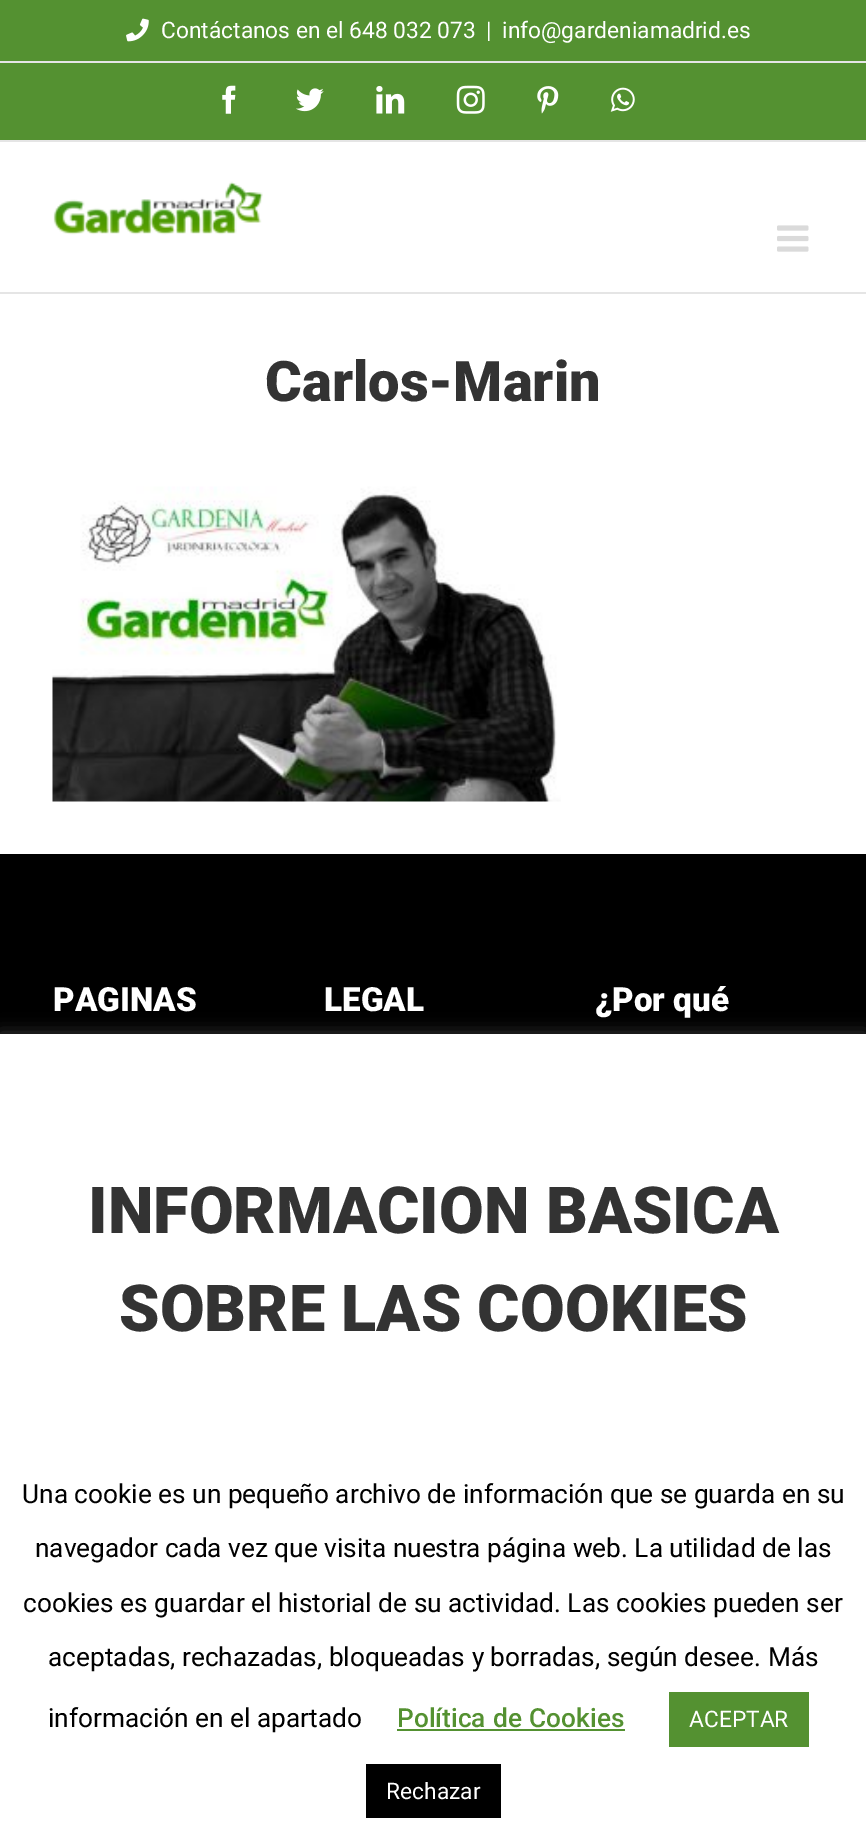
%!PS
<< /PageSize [866 1847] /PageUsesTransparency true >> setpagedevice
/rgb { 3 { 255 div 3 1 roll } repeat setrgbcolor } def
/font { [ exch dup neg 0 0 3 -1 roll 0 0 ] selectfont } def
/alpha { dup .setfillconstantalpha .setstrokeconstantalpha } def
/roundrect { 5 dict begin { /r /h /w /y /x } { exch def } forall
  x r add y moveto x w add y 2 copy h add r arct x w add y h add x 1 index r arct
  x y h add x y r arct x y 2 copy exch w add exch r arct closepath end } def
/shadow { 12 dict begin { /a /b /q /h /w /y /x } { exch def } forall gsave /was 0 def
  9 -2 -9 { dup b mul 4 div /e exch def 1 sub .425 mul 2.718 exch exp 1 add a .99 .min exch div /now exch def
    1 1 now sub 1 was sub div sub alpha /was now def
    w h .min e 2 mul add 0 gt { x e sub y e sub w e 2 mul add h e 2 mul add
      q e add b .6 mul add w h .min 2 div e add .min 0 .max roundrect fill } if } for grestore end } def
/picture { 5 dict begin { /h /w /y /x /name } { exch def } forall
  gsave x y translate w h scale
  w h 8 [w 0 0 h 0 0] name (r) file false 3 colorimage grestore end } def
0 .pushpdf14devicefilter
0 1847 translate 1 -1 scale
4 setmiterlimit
255 255 255 rgb
0 0 866 1847 rectfill
[
  [0 0 866 140 84 145 49]
  [0 140 866 2 229 229 229]
  [0 61 866 2 229 229 229]
] { aload pop rgb rectfill } forall
(img/1.rgb) 126 18 23 24 picture
(img/2.rgb) 222 85 14 29 picture
(img/3.rgb) 296 88 28 24 picture
(img/4.rgb) 376 86 29 28 picture
(img/5.rgb) 456 85 29 29 picture
(img/6.rgb) 537 86 22 28 picture
(img/7.rgb) 610 87 25 25 picture
0 292 866 2 rectfill
(img/8.rgb) 53 181 210 54 picture
(img/9.rgb) 777 225 32 27 picture
(img/10.rgb) 52 486 509 316 picture
0 0 0 rgb
0 854 866 180 rectfill
172 171 171 rgb
0 1033 866 813 0 9 0.3 shadow
[
  [0 1034 866 813 255 255 255]
  [397 1729 228 2 84 145 49]
  [669 1692 140 55 84 145 49]
  [366 1764 135 54 0 0 0]
] { aload pop rgb rectfill } forall
/Roboto-Regular 22.75 font
255 255 255 rgb
[
  [(Contáctanos en el 648 032 073) 161 38]
  [(|) 486 38]
  [(info@gardeniamadrid.es) 502 38]
] { aload pop moveto show } forall
/Roboto-Black 56 font
51 51 51 rgb
265 401 moveto (Carlos-Marin) show
/Roboto-Black 33.25 font
255 255 255 rgb
[
  [(PAGINAS) 53 1011]
  [(LEGAL) 324 1011]
  [(¿Por qué) 595 1011]
] { aload pop moveto show } forall
/Roboto-Black 64.9 font
51 51 51 rgb
88 1233 moveto (INFORMACION BASICA) show
119 1331 moveto (SOBRE LAS COOKIES) show
/Roboto-Regular 26.25 font
0 0 0 rgb
[
  [(Una cookie es un pequeño archivo de información que se guarda en su) 22 1503]
  [(navegador cada vez que visita nuestra página web. La utilidad de las) 35 1557]
  [(cookies es guardar el historial de su actividad. Las cookies pueden ser) 23 1612]
  [(aceptadas, rechazadas, bloqueadas y borradas, según desee. Más) 48 1666]
  [(información en el apartado) 48 1727]
] { aload pop moveto show } forall
/Roboto-Medium 26.25 font
84 145 49 rgb
397 1727 moveto 1 0 32 (Política de Cookies) widthshow
/Roboto-Regular 22.75 font
255 255 255 rgb
689 1727 moveto (ACEPTAR) show
386 1799 moveto (Rechazar) show
.poppdf14devicefilter showpage
